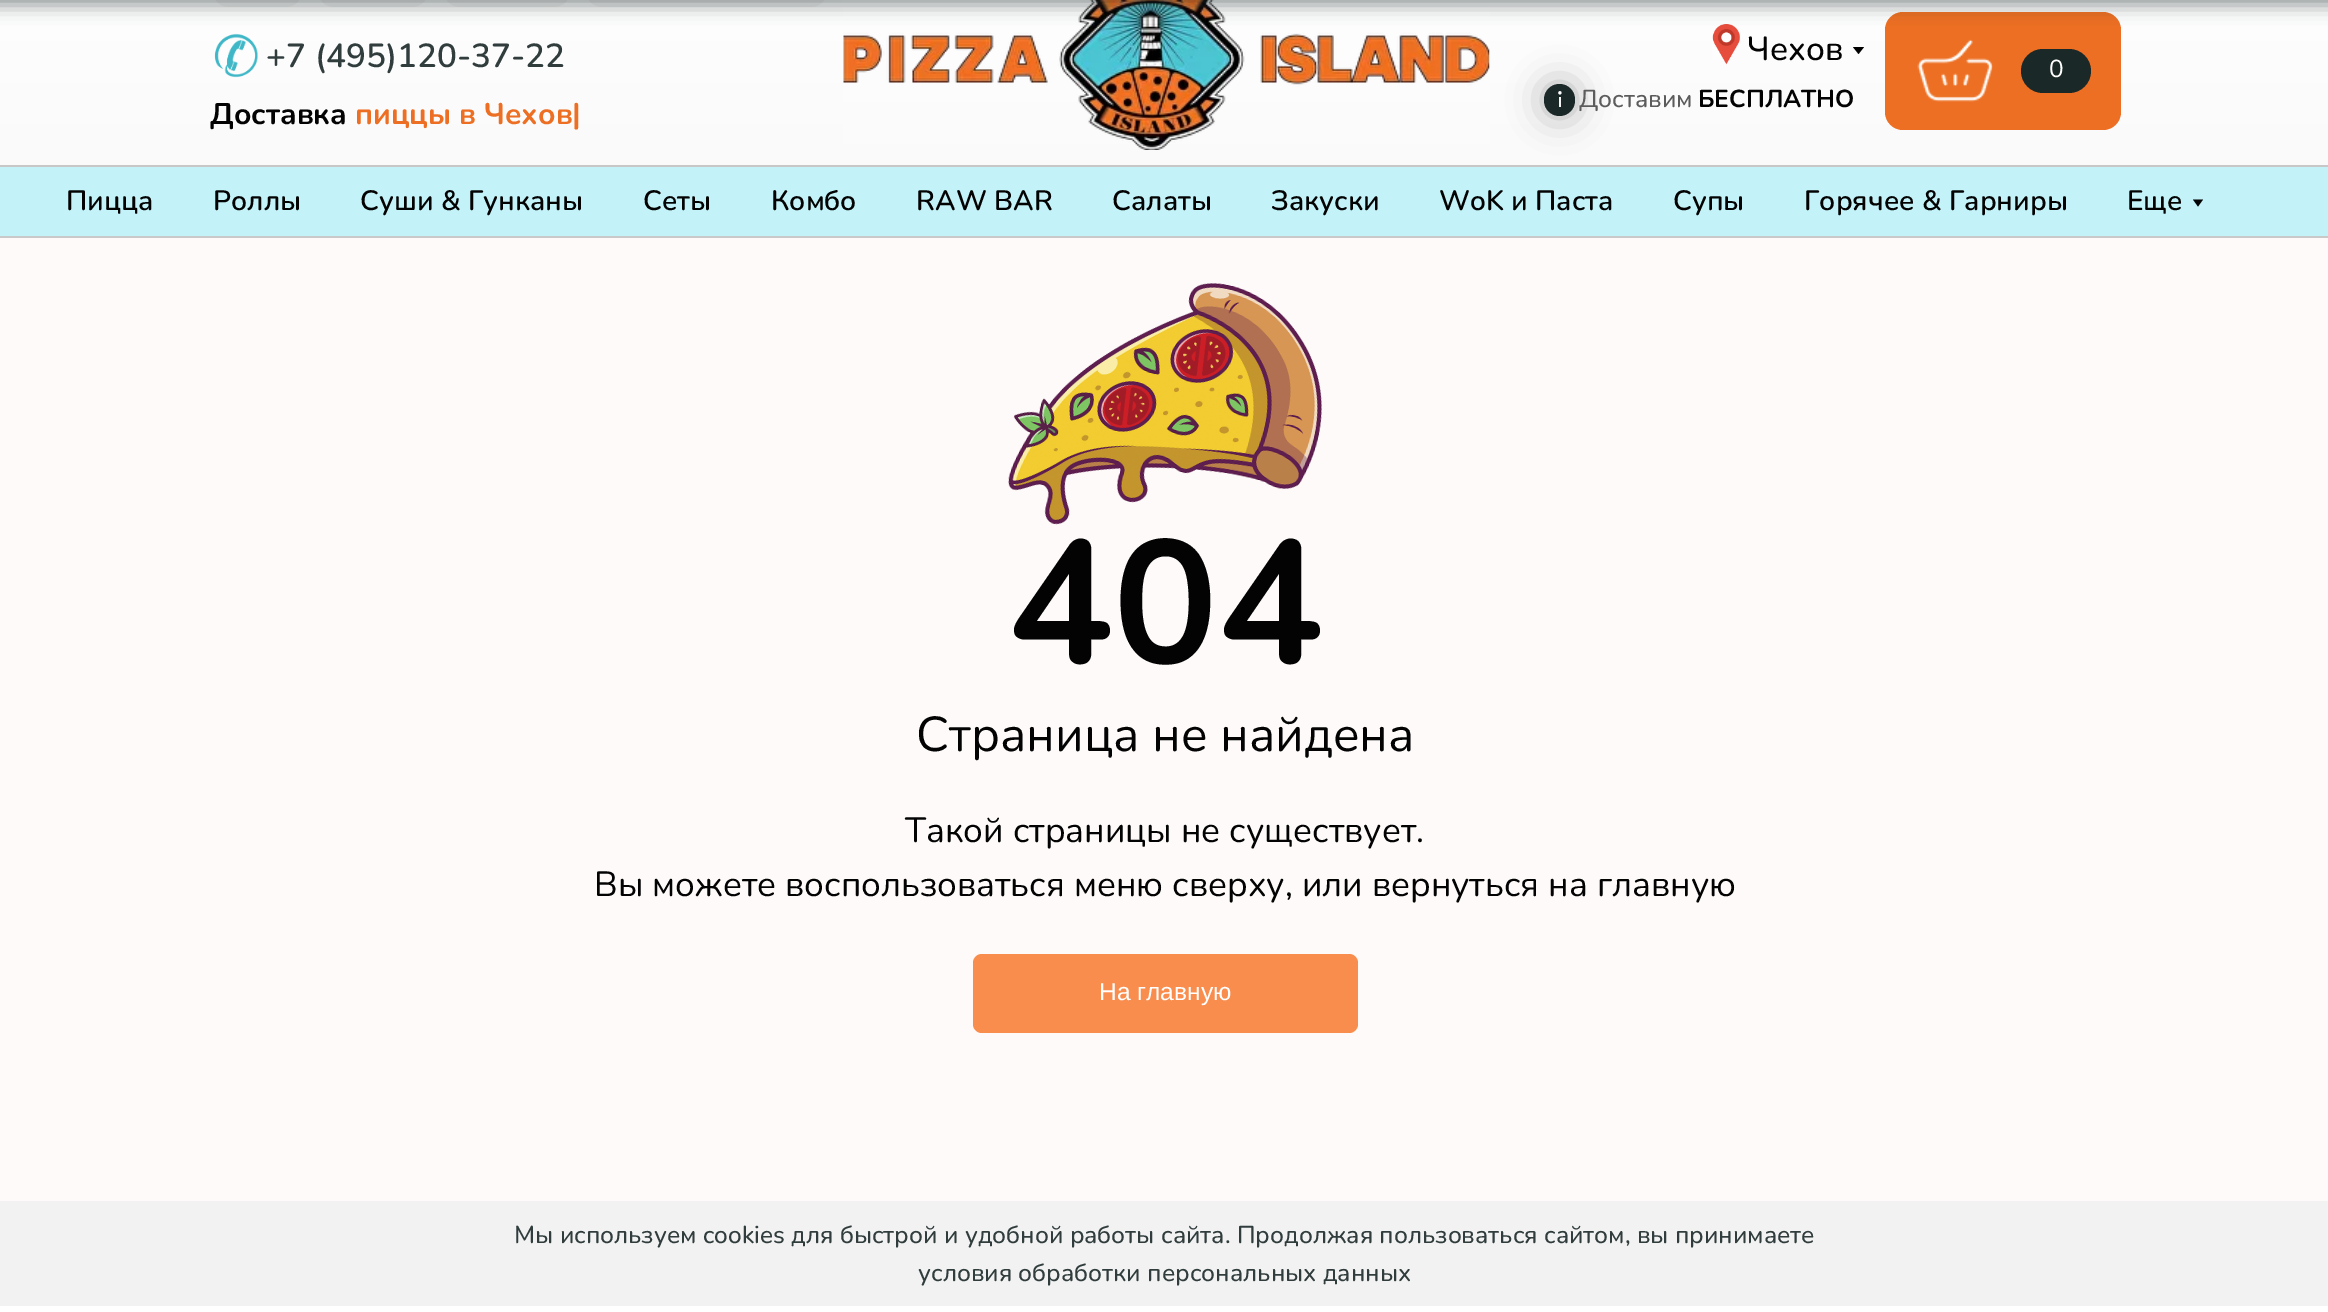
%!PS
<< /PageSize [2328 1312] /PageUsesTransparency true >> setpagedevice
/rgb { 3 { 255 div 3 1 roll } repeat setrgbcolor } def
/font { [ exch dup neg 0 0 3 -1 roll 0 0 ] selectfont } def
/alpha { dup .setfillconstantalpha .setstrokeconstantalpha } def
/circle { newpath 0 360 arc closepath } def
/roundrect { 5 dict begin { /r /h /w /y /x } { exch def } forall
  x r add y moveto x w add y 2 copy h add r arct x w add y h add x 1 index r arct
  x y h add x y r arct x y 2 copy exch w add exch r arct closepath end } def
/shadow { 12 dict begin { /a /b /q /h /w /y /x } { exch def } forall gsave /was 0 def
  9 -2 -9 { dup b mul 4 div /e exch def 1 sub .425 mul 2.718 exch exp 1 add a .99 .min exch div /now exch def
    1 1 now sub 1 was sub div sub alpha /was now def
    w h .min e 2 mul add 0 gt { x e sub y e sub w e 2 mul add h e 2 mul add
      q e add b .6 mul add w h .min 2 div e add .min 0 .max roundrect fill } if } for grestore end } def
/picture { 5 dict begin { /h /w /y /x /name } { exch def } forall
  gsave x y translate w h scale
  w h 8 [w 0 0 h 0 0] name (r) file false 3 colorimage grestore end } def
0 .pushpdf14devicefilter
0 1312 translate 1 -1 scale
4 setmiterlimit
195 242 249 rgb
0 0 2328 1312 rectfill
gsave 0 0 moveto 2328 0 lineto 2328 165 lineto 0 165 lineto closepath clip newpath
<< /ShadingType 2 /ColorSpace /DeviceRGB /Coords [1165 -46 1165 165] /Extend [true true] /Function << /FunctionType 2 /Domain [0 1] /C0 [1 1 1] /C1 [0.98 0.98 0.98] /N 1 >> >> shfill grestore
245 245 245 rgb
212 -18 91 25 17.5 roundrect fill
317 -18 112 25 17.5 roundrect fill
443 -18 128 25 17.5 roundrect fill
585 -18 243 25 17.5 roundrect fill
(img/2.rgb) 843 0 647 150 picture
(img/3.rgb) 1712 24 28 41 picture
236 111 35 rgb
1885 12 236 118 18 roundrect fill
27 40 40 rgb
-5 -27 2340 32 0 9 0.5 shadow
(img/1.rgb) 214 33 44 45 picture
199 199 199 rgb
0 165 2328 2 rectfill
0 0 0 rgb
1544 84 31 32 15.5 17.5 0.3 shadow
27 40 40 rgb
1544 84 31 32 15.5 roundrect fill
244 244 244 rgb
1559 97 2 10 rectfill
255 255 255 rgb
1559.9 92.8 1.6 circle fill
0 0 0 rgb
1853 47 moveto 1864 47 lineto 1858.5 54 lineto closepath fill
(img/4.rgb) 1917 39 76 63 picture
27 40 40 rgb
2021 49 70 44 22 roundrect fill
3 3 3 rgb
2193 199.5 moveto 2203 199.5 lineto 2198 206.5 lineto closepath fill
201 201 201 rgb
0 236 2328 2 rectfill
253 250 249 rgb
0 238 2328 963 rectfill
(img/5.rgb) 1008 283 314 242 picture
249 141 78 rgb
973 954 385 79 9 roundrect fill
242 242 242 rgb
0 1201 2328 105 rectfill
255 255 255 rgb
0 1306 2328 6 rectfill
/Nunito-Medium 33.25 font
3 3 3 rgb
1747 60 moveto (Чехов) show
/Nunito-SemiBold 33.25 font
49 61 61 rgb
266 67 moveto (+7 \(495\)120-37-22) show
/Nunito-Regular 24.5 font
255 255 255 rgb
2049 77 moveto (0) show
/Nunito-Bold 29.75 font
3 3 3 rgb
210 124 moveto (Доставка) show
236 111 35 rgb
355 124 moveto (пиццы в Чехов|) show
/Nunito-Medium 24.5 font
92 92 92 rgb
1579 107 moveto (Доставим) show
/Nunito-Bold 24.5 font
3 3 3 rgb
1698 107 moveto (БЕСПЛАТНО) show
/Nunito-SemiBold 28 font
[
  [(Пицца) 66 210]
  [(Роллы) 213 210]
  [(Суши & Гунканы) 360 210]
  [(Сеты) 643 210]
  [(Комбо) 771 210]
  [(RAW BAR) 916 210]
  [(Салаты) 1112 210]
  [(Закуски) 1271 210]
  [(WoK и Паста) 1439 210]
  [(Супы) 1673 210]
  [(Горячее & Гарниры) 1804 210]
  [(Еще) 2127 210]
] { aload pop moveto show } forall
/Nunito-Bold 175 font
1008 663 moveto (404) show
/Nunito-Regular 49 font
916 751 moveto (Страница не найдена) show
/Nunito-Regular 35 font
905 842 moveto (Такой страницы не существует.) show
594 896 moveto (Вы можете воспользоваться меню сверху, или вернуться на главную) show
/LiberationSans-Regular 24.5 font
255 255 255 rgb
1099 1000 moveto (На главную) show
/Nunito-Medium 24.5 font
49 61 61 rgb
514 1243 moveto (Мы используем cookies для быстрой и удобной работы сайта. Продолжая пользоваться сайтом, вы принимаете) show
918 1281 moveto (условия обработки персональных данных) show
.poppdf14devicefilter showpage
